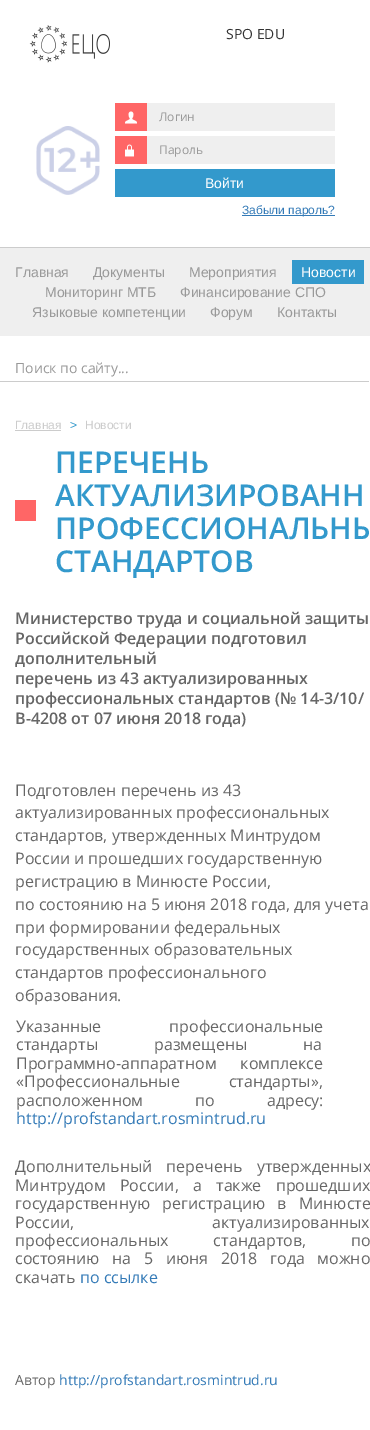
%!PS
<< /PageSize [370 1430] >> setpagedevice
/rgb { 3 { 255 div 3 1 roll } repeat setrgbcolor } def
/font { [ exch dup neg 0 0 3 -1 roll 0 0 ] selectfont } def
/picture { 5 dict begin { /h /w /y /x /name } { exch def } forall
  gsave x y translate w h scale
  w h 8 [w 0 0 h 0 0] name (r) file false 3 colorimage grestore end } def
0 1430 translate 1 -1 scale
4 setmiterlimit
255 255 255 rgb
0 0 370 1430 rectfill
204 204 204 rgb
0 247 370 1 rectfill
(img/1.rgb) 29 25 81 38 picture
(img/2.rgb) 36 126 64 69 picture
239 239 239 rgb
147 103 188 28 rectfill
255 102 102 rgb
115 103 32 28 rectfill
(img/3.rgb) 125 111 12 13 picture
239 239 239 rgb
147 136 188 28 rectfill
255 102 102 rgb
115 136 32 28 rectfill
(img/4.rgb) 125 144 9 13 picture
[
  [115 169 220 28 51 153 204]
  [242 215 93 1 51 122 183]
  [0 248 370 88 239 239 239]
  [292 260 72 24 51 153 204]
  [0 381 369 1 204 204 204]
  [15 430 46 1 204 204 204]
  [15 500 21 21 255 102 102]
] { aload pop rgb rectfill } forall
/OpenSans-Regular 14 font
51 51 51 rgb
226 39 moveto (SPO EDU) show
/OpenSans-Regular 12 font
153 153 153 rgb
159 121 moveto (Логин) show
159 154 moveto (Пароль) show
/LiberationSans-Regular 14 font
255 255 255 rgb
205 188 moveto (Войти) show
/LiberationSans-Regular 12 font
51 122 183 rgb
242 214 moveto (Забыли пароль?) show
/LiberationSans-Regular 14 font
153 153 153 rgb
[
  [(Главная) 15 277]
  [(Документы) 93 277]
  [(Мероприятия) 189 277]
] { aload pop moveto show } forall
255 255 255 rgb
301 277 moveto (Новости) show
153 153 153 rgb
[
  [(Мониторинг МТБ) 45 297]
  [(Финансирование СПО) 180 297]
  [(Языковые компетенции) 32 317]
  [(Форум) 210 317]
  [(Контакты) 277 317]
] { aload pop moveto show } forall
/OpenSans-Regular 14 font
15 373 moveto (Поиск по сайту...) show
/LiberationSans-Regular 12 font
204 204 204 rgb
15 429 moveto (Главная) show
51 153 204 rgb
70 429 moveto (>) show
204 204 204 rgb
85 429 moveto (Новости) show
/OpenSans-SemiBold 30 font
51 153 204 rgb
[
  [(ПЕРЕЧЕНЬ) 55 473]
  [(АКТУАЛИЗИРОВАНН) 55 506]
  [(ПРОФЕССИОНАЛЬНЫ) 55 539]
  [(СТАНДАРТОВ) 55 572]
] { aload pop moveto show } forall
/OpenSans-SemiBold 16 font
102 102 102 rgb
[
  [(Министерство труда и социальной защиты) 15 624]
  [(Российской Федерации подготовил) 15 644]
  [(дополнительный) 15 664]
  [(перечень из 43 актуализированных) 15 684]
  [(профессиональных стандартов \(№ 14-3/10/) 15 704]
  [(В-4208 от 07 июня 2018 года\)) 15 724]
] { aload pop moveto show } forall
/OpenSans-Regular 16 font
[
  [(Подготовлен перечень из 43) 15 796]
  [(актуализированных профессиональных) 15 818]
  [(стандартов, утвержденных Минтрудом) 15 841]
  [(России и прошедших государственную) 15 864]
  [(регистрацию в Минюсте России,) 15 887]
  [(по состоянию на 5 июня 2018 года, для учета) 15 910]
  [(при формировании федеральных) 15 933]
  [(государственных образовательных) 15 955]
  [(стандартов профессионального) 15 978]
  [(образования.) 15 1001]
] { aload pop moveto show } forall
16 1032 moveto 64 0 32 (Указанные профессиональные) widthshow
16 1050 moveto 52 0 32 (стандарты размещены на) widthshow
16 1069 moveto 20 0 32 (Программно-аппаратном комплексе) widthshow
16 1087 moveto 45 0 32 («Профессиональные стандарты»,) widthshow
16 1106 moveto 48 0 32 (расположенном по адресу:) widthshow
51 122 183 rgb
16 1124 moveto (http://profstandart.rosmintrud.ru) show
102 102 102 rgb
15 1172 moveto 10 0 32 (Дополнительный перечень утвержденных) widthshow
15 1191 moveto 10 0 32 (Минтрудом России, а также прошедших) widthshow
15 1209 moveto 8 0 32 (государственную регистрацию в Минюсте) widthshow
15 1228 moveto 134 0 32 (России, актуализированных) widthshow
15 1246 moveto 41 0 32 (профессиональных стандартов, по) widthshow
15 1264 moveto 8.5 0 32 (состоянию на 5 июня 2018 года можно) widthshow
15 1283 moveto (скачать) show
51 122 183 rgb
80 1283 moveto (по ссылке) show
/OpenSans-Regular 14 font
102 102 102 rgb
15 1385 moveto (Автор) show
51 122 183 rgb
59 1385 moveto (http://profstandart.rosmintrud.ru) show
showpage
